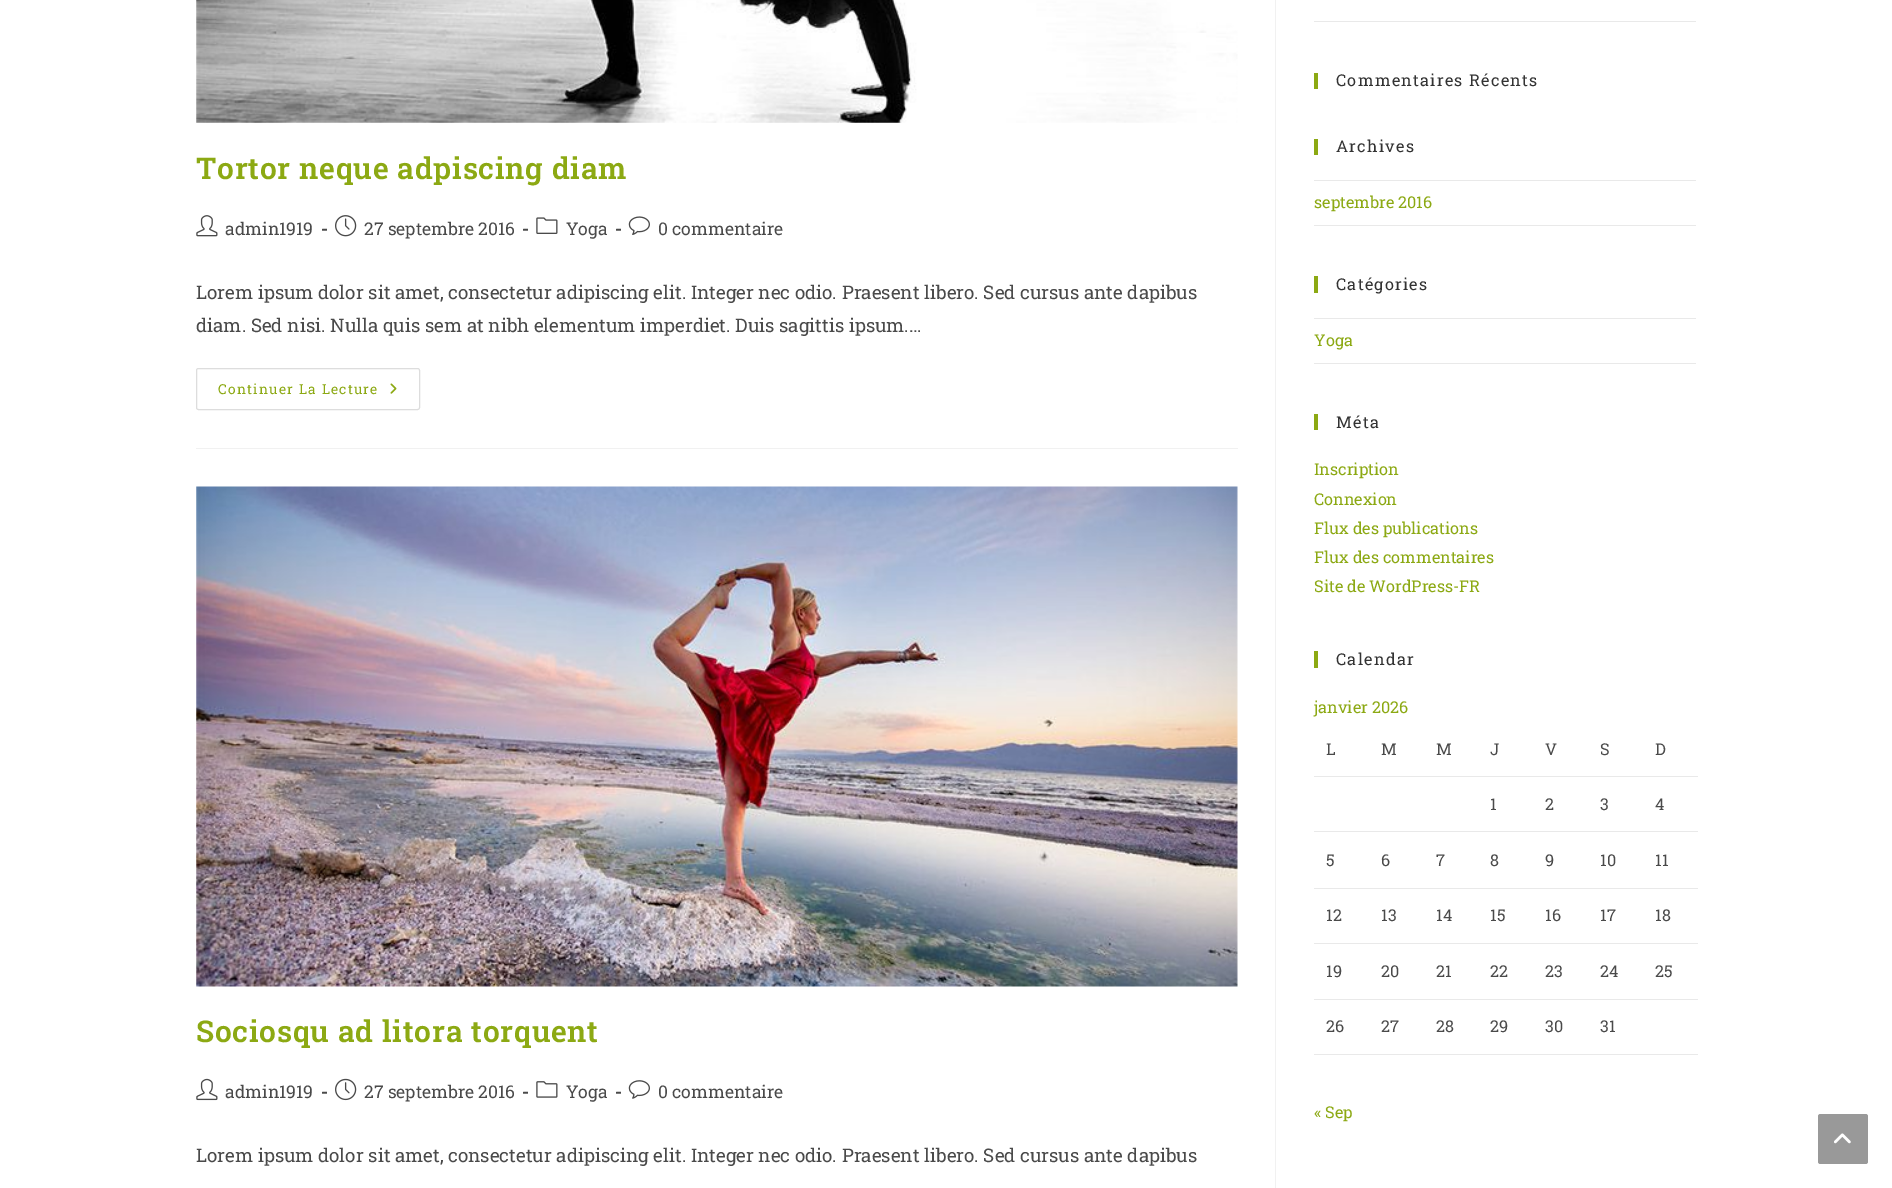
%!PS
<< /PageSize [1892 1188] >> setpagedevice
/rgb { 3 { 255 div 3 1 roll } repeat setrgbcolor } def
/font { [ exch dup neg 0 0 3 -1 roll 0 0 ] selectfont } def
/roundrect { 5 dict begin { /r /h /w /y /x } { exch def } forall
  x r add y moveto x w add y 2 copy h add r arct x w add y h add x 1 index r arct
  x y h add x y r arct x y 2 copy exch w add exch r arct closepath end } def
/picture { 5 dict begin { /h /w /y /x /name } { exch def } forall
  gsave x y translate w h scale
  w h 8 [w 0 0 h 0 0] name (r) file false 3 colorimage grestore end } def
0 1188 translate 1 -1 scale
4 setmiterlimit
255 255 255 rgb
0 0 1892 1188 rectfill
241 241 241 rgb
1275 0 1 1188 rectfill
196 448 1042 1 rectfill
(img/1.rgb) 196 0 1042 123 picture
(img/2.rgb) 196 215 22 22 picture
(img/3.rgb) 335 215 22 22 picture
(img/4.rgb) 536 217 22 17 picture
(img/5.rgb) 628 216 22 19 picture
221 221 221 rgb
196.5 368.5 223 41 2 roundrect stroke
(img/6.rgb) 390 383 7 11 picture
(img/7.rgb) 196 486 1042 501 picture
(img/8.rgb) 196 1078 22 23 picture
(img/9.rgb) 335 1078 22 23 picture
(img/10.rgb) 536 1081 22 17 picture
(img/11.rgb) 628 1080 22 19 picture
[
  [1314 21 382 1 233 233 233]
  [1314 73 4 16 140 169 19]
  [1314 139 4 16 140 169 19]
  [1314 180 382 1 233 233 233]
  [1314 225 382 1 233 233 233]
  [1314 276 4 17 140 169 19]
  [1314 318 382 1 233 233 233]
  [1314 363 382 1 233 233 233]
  [1314 414 4 16 140 169 19]
  [1314 651 4 17 140 169 19]
  [1314 776 384 1 233 233 233]
  [1314 831 384 1 233 233 233]
  [1314 888 384 1 233 233 233]
  [1314 943 384 1 233 233 233]
  [1314 999 384 1 233 233 233]
  [1314 1054 384 1 233 233 233]
] { aload pop rgb rectfill } forall
153 153 153 rgb
1818 1114 50 50 2.5 roundrect fill
(img/12.rgb) 1834 1133 17 11 picture
/RobotoSlab-SemiBold 30 font
140 169 19 rgb
196 179 moveto 0.75 0 (Tortor neque adpiscing diam) ashow
/RobotoSlab-Regular 17.5 font
74 74 74 rgb
225 235 moveto (admin1919) show
/RobotoSlab-Bold 17.5 font
321 235 moveto (-) show
/RobotoSlab-Regular 17.5 font
364 235 moveto (27 septembre 2016) show
/RobotoSlab-Bold 17.5 font
522 235 moveto (-) show
/RobotoSlab-Regular 17.5 font
566 235 moveto (Yoga) show
/RobotoSlab-Bold 17.5 font
615 235 moveto (-) show
/RobotoSlab-Regular 17.5 font
658 235 moveto (0 commentaire) show
/RobotoSlab-Regular 18.75 font
196 299 moveto (Lorem ipsum dolor sit amet, consectetur adipiscing elit. Integer nec odio. Praesent libero. Sed cursus ante dapibus) show
196 332 moveto (diam. Sed nisi. Nulla quis sem at nibh elementum imperdiet. Duis sagittis ipsum.…) show
/RobotoSlab-Regular 13.75 font
140 169 19 rgb
218 394 moveto 1.25 0 (Continuer La Lecture) ashow
/RobotoSlab-SemiBold 30 font
196 1042 moveto 0.75 0 (Sociosqu ad litora torquent) ashow
/RobotoSlab-Regular 17.5 font
74 74 74 rgb
225 1098 moveto (admin1919) show
/RobotoSlab-Bold 17.5 font
321 1098 moveto (-) show
/RobotoSlab-Regular 17.5 font
364 1098 moveto (27 septembre 2016) show
/RobotoSlab-Bold 17.5 font
522 1098 moveto (-) show
/RobotoSlab-Regular 17.5 font
566 1098 moveto (Yoga) show
/RobotoSlab-Bold 17.5 font
615 1098 moveto (-) show
/RobotoSlab-Regular 17.5 font
658 1098 moveto (0 commentaire) show
/RobotoSlab-Regular 18.75 font
196 1162 moveto (Lorem ipsum dolor sit amet, consectetur adipiscing elit. Integer nec odio. Praesent libero. Sed cursus ante dapibus) show
/RobotoSlab-Regular 16.25 font
51 51 51 rgb
1336 86 moveto 1.25 0 (Commentaires Récents) ashow
1336 152 moveto 1.25 0 (Archives) ashow
140 169 19 rgb
1314 208 moveto (septembre 2016) show
51 51 51 rgb
1336 290 moveto 1.25 0 (Catégories) ashow
140 169 19 rgb
1314 346 moveto (Yoga) show
51 51 51 rgb
1336 428 moveto 1.25 0 (Méta) ashow
140 169 19 rgb
[
  [(Inscription) 1314 475]
  [(Connexion) 1314 505]
  [(Flux des publications) 1314 534]
  [(Flux des commentaires) 1314 563]
  [(Site de WordPress-FR) 1314 592]
] { aload pop moveto show } forall
51 51 51 rgb
1336 665 moveto 1.25 0 (Calendar) ashow
140 169 19 rgb
1314 713 moveto (janvier 2026) show
74 74 74 rgb
[
  [(L) 1326 755]
  [(M) 1381 755]
  [(M) 1436 755]
  [(J) 1490 755]
  [(V) 1545 755]
  [(S) 1600 755]
  [(D) 1655 755]
  [(1) 1490 810]
  [(2) 1545 810]
  [(3) 1600 810]
  [(4) 1655 810]
  [(5) 1326 866]
  [(6) 1381 866]
  [(7) 1436 866]
  [(8) 1490 866]
  [(9) 1545 866]
  [(10) 1600 866]
  [(11) 1655 866]
  [(12) 1326 921]
  [(13) 1381 921]
  [(14) 1436 921]
  [(15) 1490 921]
  [(16) 1545 921]
  [(17) 1600 921]
  [(18) 1655 921]
  [(19) 1326 977]
  [(20) 1381 977]
  [(21) 1436 977]
  [(22) 1490 977]
  [(23) 1545 977]
  [(24) 1600 977]
  [(25) 1655 977]
  [(26) 1326 1032]
  [(27) 1381 1032]
  [(28) 1436 1032]
  [(29) 1490 1032]
  [(30) 1545 1032]
  [(31) 1600 1032]
] { aload pop moveto show } forall
140 169 19 rgb
1314 1118 moveto (« Sep) show
showpage
